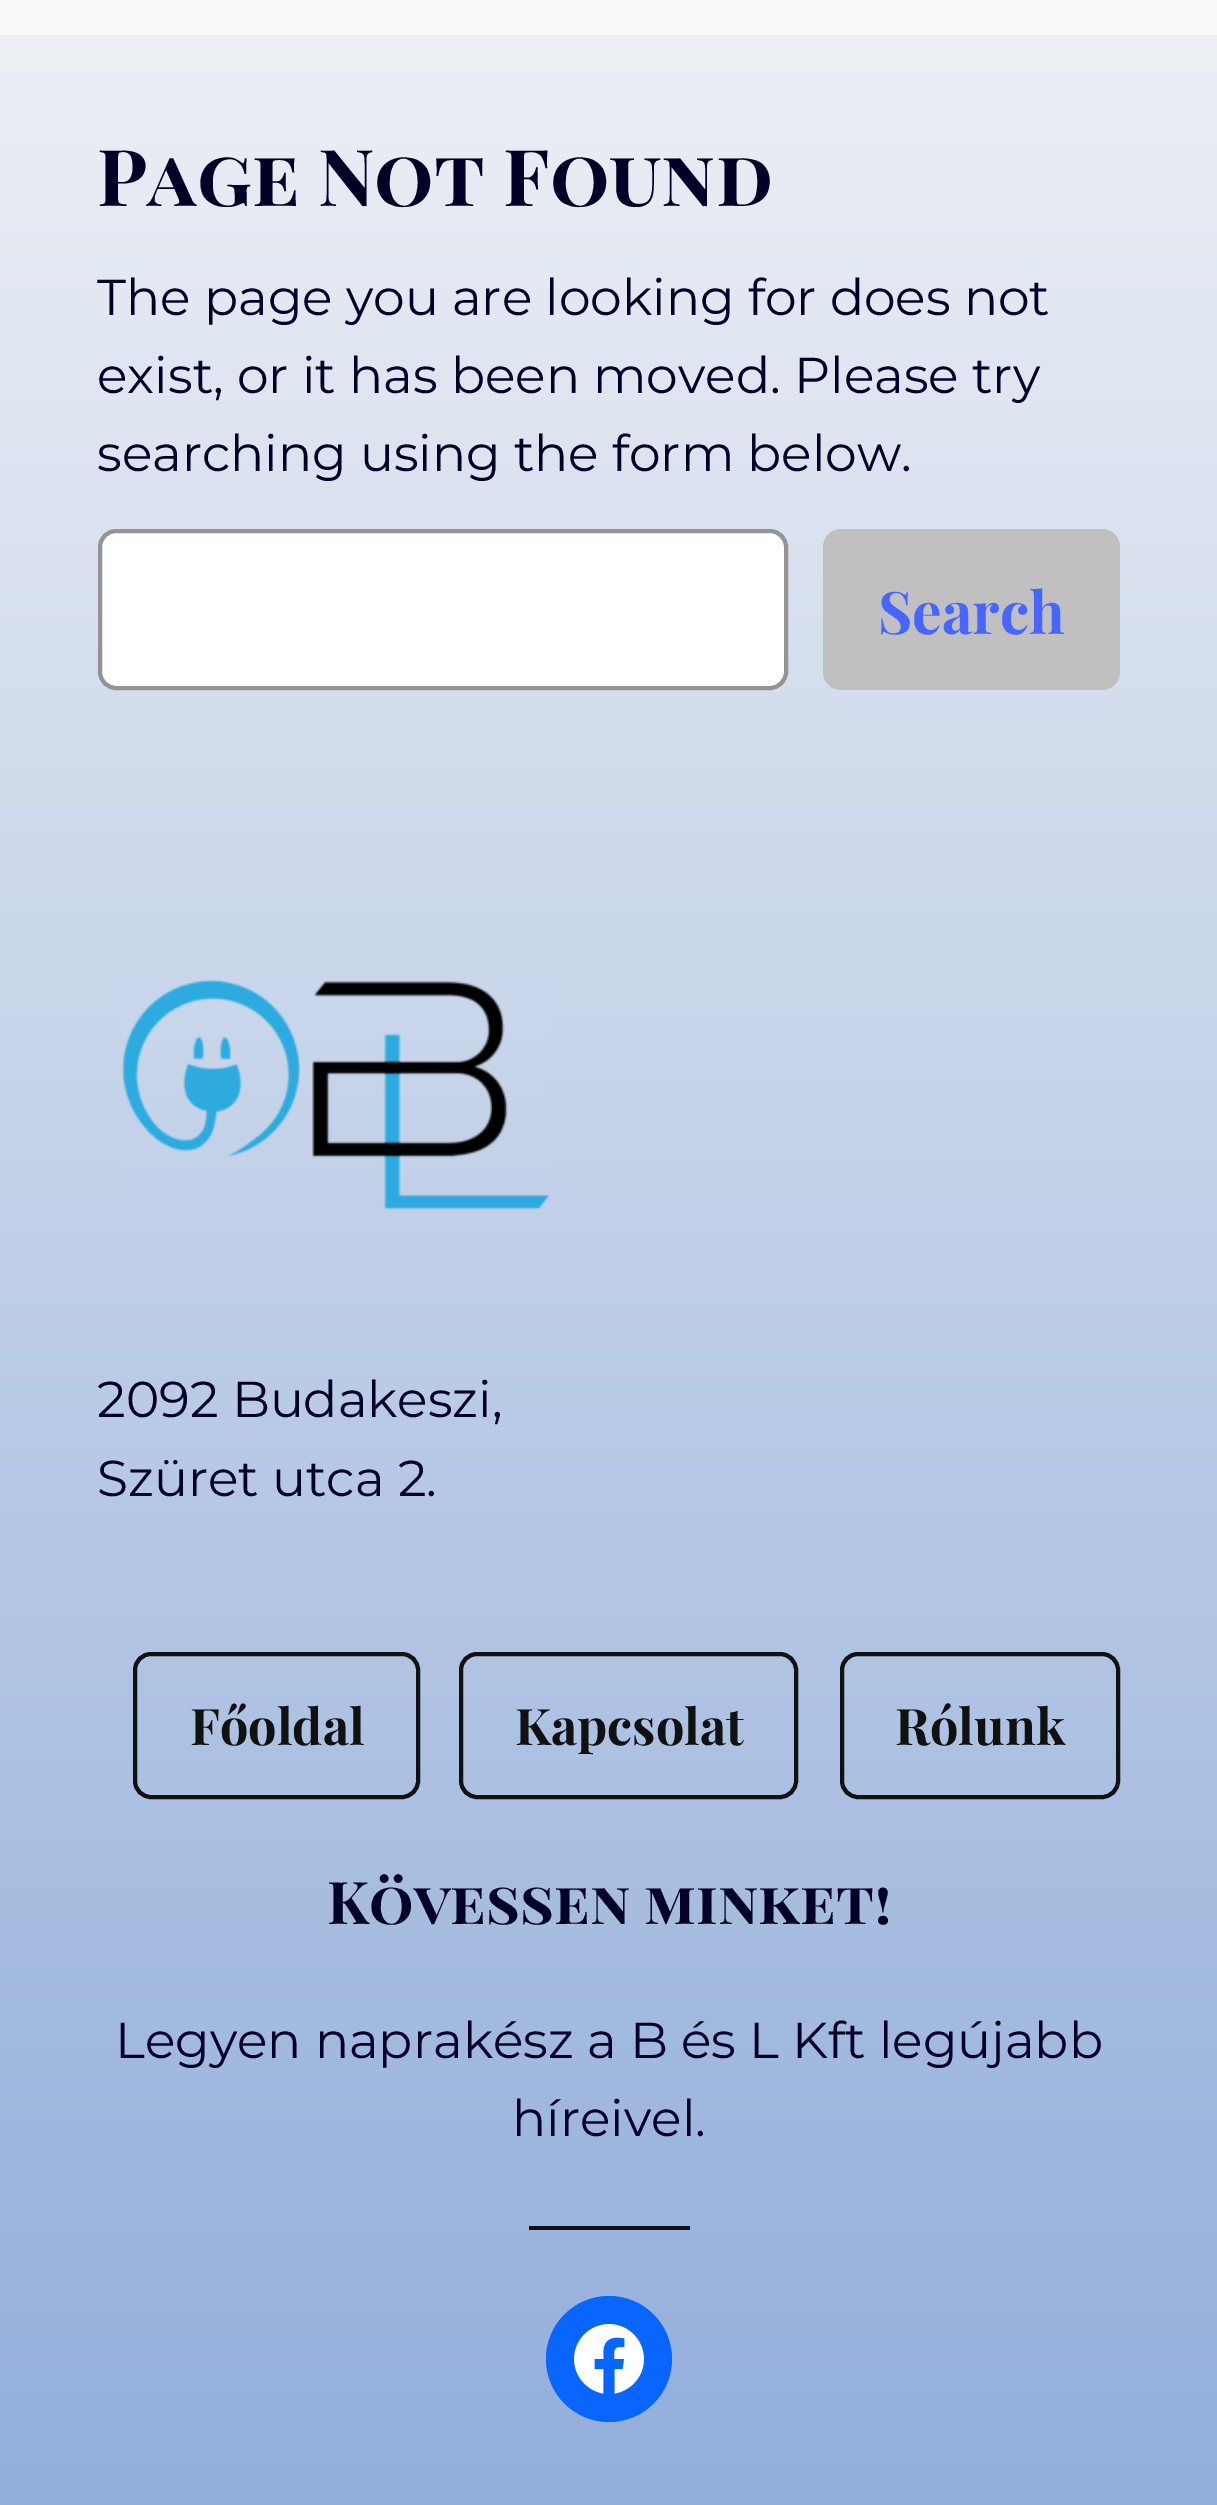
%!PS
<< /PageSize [1217 2505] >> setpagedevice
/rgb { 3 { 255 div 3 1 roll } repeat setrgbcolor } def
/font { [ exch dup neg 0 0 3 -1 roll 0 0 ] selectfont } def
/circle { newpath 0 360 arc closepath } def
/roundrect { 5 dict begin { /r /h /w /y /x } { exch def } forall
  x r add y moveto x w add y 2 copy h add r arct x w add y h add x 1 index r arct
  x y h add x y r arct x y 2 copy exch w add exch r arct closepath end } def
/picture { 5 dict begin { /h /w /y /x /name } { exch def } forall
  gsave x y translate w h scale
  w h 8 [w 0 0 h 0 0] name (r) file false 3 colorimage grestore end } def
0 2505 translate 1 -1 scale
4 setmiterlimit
255 255 255 rgb
0 0 1217 2505 rectfill
gsave 0 35 moveto 1217 35 lineto 1217 2505 lineto 0 2505 lineto closepath clip newpath
<< /ShadingType 2 /ColorSpace /DeviceRGB /Coords [609 -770 609 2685] /Extend [true true] /Function << /FunctionType 3 /Domain [0 1] /Functions [<< /FunctionType 2 /Domain [0 1] /C0 [0.973 0.973 0.973] /C1 [0.973 0.973 0.973] /N 1 >> << /FunctionType 2 /Domain [0 1] /C0 [0.973 0.973 0.973] /C1 [0.545 0.663 0.851] /N 1 >>] /Bounds [0.14] /Encode [0 1 0 1] >> >> shfill grestore
249 249 249 rgb
0 0 1217 35 rectfill
255 255 255 rgb
100 531 686 157 16 roundrect gsave fill grestore
148 148 148 rgb
4 setlinewidth
stroke
192 192 192 rgb
823 529 297 161 18 roundrect fill
(img/1.rgb) 121 979 429 231 picture
17 17 17 rgb
135 1654 283 143 16 roundrect stroke
461 1654 335 143 16 roundrect stroke
842 1654 276 143 16 roundrect stroke
529 2226 161 4 rectfill
8 102 255 rgb
609 2359 63 circle fill
(img/2.rgb) 574 2324 70 70 picture
/PlayfairDisplaySC-Bold 78.5 font
3 0 39 rgb
97 206 moveto (Page Not Found) show
/Montserrat-Regular 50.4 font
[
  [(The page you are looking for does not) 97 315]
  [(exist, or it has been moved. Please try) 97 393]
  [(searching using the form below.) 97 471]
] { aload pop moveto show } forall
/PlayfairDisplay-Bold 58.75 font
70 102 255 rgb
878 634 moveto (Search) show
/Montserrat-Regular 50.4 font
3 0 39 rgb
97 1417 moveto (2092 Budakeszi,) show
97 1496 moveto (Szüret utca 2.) show
/PlayfairDisplay-Bold 50.4 font
17 17 17 rgb
[
  [(Főoldal) 190 1745]
  [(Kapcsolat) 515 1745]
  [(Rólunk) 895 1745]
] { aload pop moveto show } forall
/PlayfairDisplaySC-Bold 58.75 font
3 0 39 rgb
327 1924 moveto (Kövessen minket!) show
/Montserrat-Regular 50.4 font
115 2058 moveto (Legyen naprakész a B és L Kft legújabb) show
512 2136 moveto (híreivel.) show
showpage
